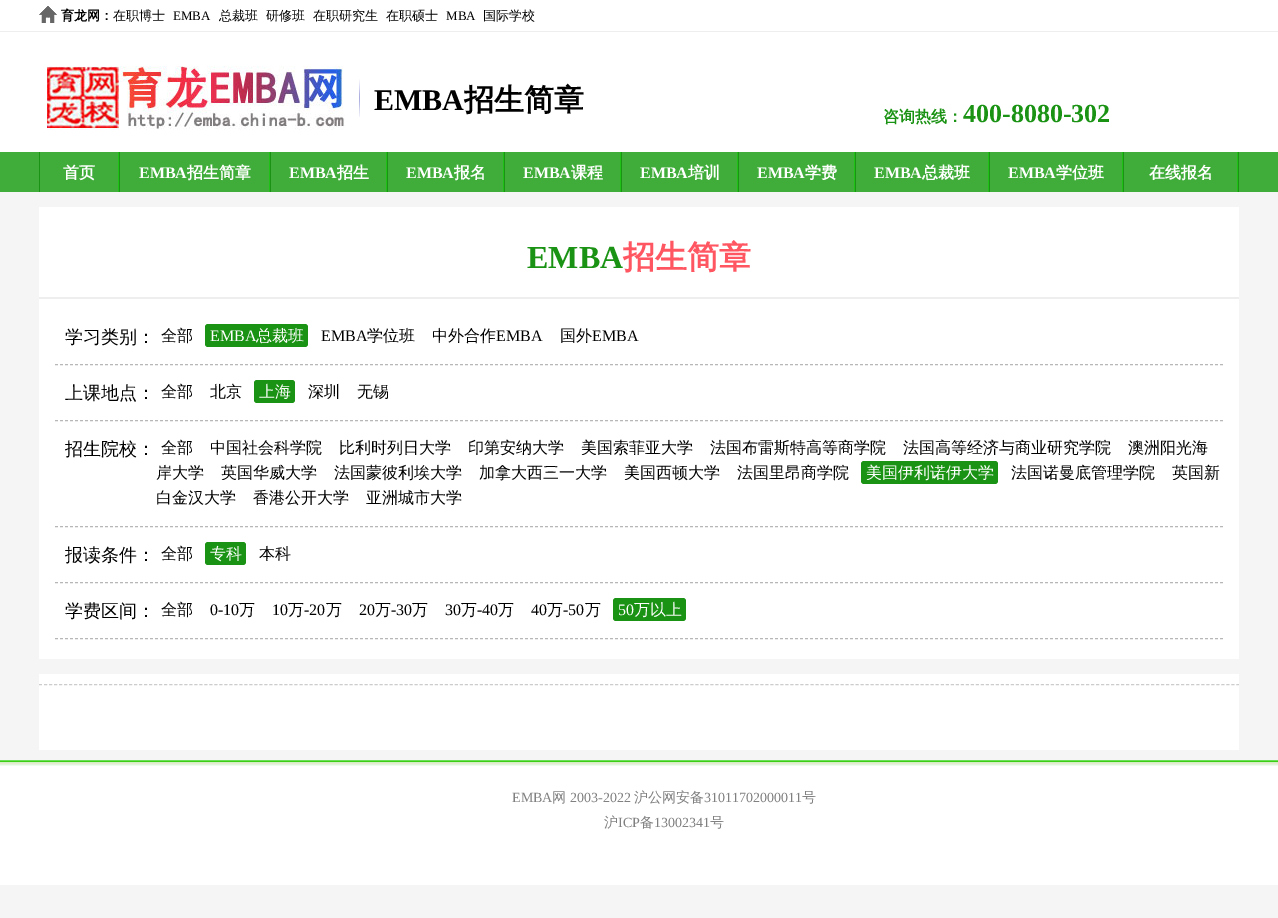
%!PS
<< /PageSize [1278 918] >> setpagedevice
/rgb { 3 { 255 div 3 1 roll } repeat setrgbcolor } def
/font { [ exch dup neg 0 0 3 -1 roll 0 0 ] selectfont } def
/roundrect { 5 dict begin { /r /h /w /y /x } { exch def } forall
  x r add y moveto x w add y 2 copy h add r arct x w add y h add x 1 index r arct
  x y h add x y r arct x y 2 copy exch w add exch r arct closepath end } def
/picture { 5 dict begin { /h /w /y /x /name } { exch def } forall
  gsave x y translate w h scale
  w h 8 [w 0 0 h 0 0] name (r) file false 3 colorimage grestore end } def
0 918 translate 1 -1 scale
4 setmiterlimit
245 245 245 rgb
0 0 1278 918 rectfill
255 255 255 rgb
0 0 1278 152 rectfill
238 238 238 rgb
0 31 1278 1 rectfill
(img/1.rgb) 39 6 18 17 picture
(img/2.rgb) 47 66 298 64 picture
(img/3.rgb) 359 79 1 38 picture
[
  [0 152 1278 40 64 173 58]
  [1238 152 1 40 26 146 19]
  [118 152 1 40 31 193 22]
  [39 152 1 40 26 146 19]
  [269 152 1 40 31 193 22]
  [119 152 1 40 26 146 19]
  [386 152 1 40 31 193 22]
  [270 152 1 40 26 146 19]
  [503 152 1 40 31 193 22]
  [387 152 1 40 26 146 19]
  [620 152 1 40 31 193 22]
  [504 152 1 40 26 146 19]
  [737 152 1 40 31 193 22]
  [621 152 1 40 26 146 19]
  [854 152 1 40 31 193 22]
  [738 152 1 40 26 146 19]
  [988 152 1 40 31 193 22]
  [855 152 1 40 26 146 19]
  [1122 152 1 40 31 193 22]
  [989 152 1 40 26 146 19]
  [1237 152 1 40 31 193 22]
  [1123 152 1 40 26 146 19]
  [39 207 1200 543 255 255 255]
  [39 297 1200 2 238 238 238]
  [39 659 1200 15 245 245 245]
] { aload pop rgb rectfill } forall
183 183 183 rgb
[3 2] 0 setdash
55 364.5 moveto 1223 364.5 lineto stroke
26 146 19 rgb
205 324 103 23 3 roundrect fill
183 183 183 rgb
55 420.5 moveto 1223 420.5 lineto stroke
26 146 19 rgb
254 380 41 23 3 roundrect fill
183 183 183 rgb
55 526.5 moveto 1223 526.5 lineto stroke
26 146 19 rgb
861 461 137 23 3 roundrect fill
183 183 183 rgb
55 582.5 moveto 1223 582.5 lineto stroke
26 146 19 rgb
205 542 41 23 3 roundrect fill
183 183 183 rgb
55 638.5 moveto 1223 638.5 lineto stroke
26 146 19 rgb
613 598 73 23 3 roundrect fill
204 204 204 rgb
[3 2.01] 0 setdash
39 684.5 moveto 1239 684.5 lineto stroke
255 255 255 rgb
0 766 1278 119 rectfill
(img/4.rgb) 0 760 1278 6 picture
/WenQuanYiZenHei-Bold 13 font
0 0 0 rgb
61 20 moveto (育龙网：) show
/WenQuanYiZenHei-Medium 13 font
113 20 moveto (在职博士) show
/LiberationSerif-Regular 13 font
173 20 moveto (EMBA) show
/WenQuanYiZenHei-Medium 13 font
[
  [(总裁班) 219 20]
  [(研修班) 266 20]
  [(在职研究生) 313 20]
  [(在职硕士) 386 20]
] { aload pop moveto show } forall
/LiberationSerif-Regular 13 font
446 20 moveto (MBA) show
/WenQuanYiZenHei-Medium 13 font
483 20 moveto (国际学校) show
/LiberationSerif-Bold 30 font
374 110 moveto (EMBA) show
/WenQuanYiZenHei-Bold 30 font
464 110 moveto (招生简章) show
/WenQuanYiZenHei-Bold 16 font
26 146 19 rgb
883 122 moveto (咨询热线：) show
/LiberationSerif-Bold 26 font
963 122 moveto (400-8080-302) show
/WenQuanYiZenHei-Bold 16 font
255 255 255 rgb
63 178 moveto (首页) show
/LiberationSerif-Bold 16 font
139 178 moveto (EMBA) show
/WenQuanYiZenHei-Bold 16 font
187 178 moveto (招生简章) show
/LiberationSerif-Bold 16 font
289 178 moveto (EMBA) show
/WenQuanYiZenHei-Bold 16 font
337 178 moveto (招生) show
/LiberationSerif-Bold 16 font
406 178 moveto (EMBA) show
/WenQuanYiZenHei-Bold 16 font
454 178 moveto (报名) show
/LiberationSerif-Bold 16 font
523 178 moveto (EMBA) show
/WenQuanYiZenHei-Bold 16 font
571 178 moveto (课程) show
/LiberationSerif-Bold 16 font
640 178 moveto (EMBA) show
/WenQuanYiZenHei-Bold 16 font
688 178 moveto (培训) show
/LiberationSerif-Bold 16 font
757 178 moveto (EMBA) show
/WenQuanYiZenHei-Bold 16 font
805 178 moveto (学费) show
/LiberationSerif-Bold 16 font
874 178 moveto (EMBA) show
/WenQuanYiZenHei-Bold 16 font
922 178 moveto (总裁班) show
/LiberationSerif-Bold 16 font
1008 178 moveto (EMBA) show
/WenQuanYiZenHei-Bold 16 font
1056 178 moveto (学位班) show
1149 178 moveto (在线报名) show
/LiberationSerif-Bold 32 font
26 146 19 rgb
527 268 moveto (EMBA) show
/WenQuanYiZenHei-Bold 32 font
255 86 97 rgb
623 268 moveto (招生简章) show
/WenQuanYiZenHei-Medium 18 font
0 0 0 rgb
65 343 moveto (学习类别：) show
/WenQuanYiZenHei-Medium 16 font
161 341 moveto (全部) show
/LiberationSerif-Regular 16 font
255 255 255 rgb
210 341 moveto (EMBA) show
/WenQuanYiZenHei-Medium 16 font
256 341 moveto (总裁班) show
/LiberationSerif-Regular 16 font
0 0 0 rgb
321 341 moveto (EMBA) show
/WenQuanYiZenHei-Medium 16 font
367 341 moveto (学位班) show
432 341 moveto (中外合作) show
/LiberationSerif-Regular 16 font
496 341 moveto (EMBA) show
/WenQuanYiZenHei-Medium 16 font
560 341 moveto (国外) show
/LiberationSerif-Regular 16 font
592 341 moveto (EMBA) show
/WenQuanYiZenHei-Medium 18 font
65 399 moveto (上课地点：) show
/WenQuanYiZenHei-Medium 16 font
161 397 moveto (全部) show
210 397 moveto (北京) show
255 255 255 rgb
259 397 moveto (上海) show
0 0 0 rgb
308 397 moveto (深圳) show
357 397 moveto (无锡) show
/WenQuanYiZenHei-Medium 18 font
65 455 moveto (招生院校：) show
/WenQuanYiZenHei-Medium 16 font
[
  [(全部) 161 453]
  [(中国社会科学院) 210 453]
  [(比利时列日大学) 339 453]
  [(印第安纳大学) 468 453]
  [(美国索菲亚大学) 581 453]
  [(法国布雷斯特高等商学院) 710 453]
  [(法国高等经济与商业研究学院) 903 453]
  [(澳洲阳光海) 1128 453]
  [(岸大学) 156 478]
  [(英国华威大学) 221 478]
  [(法国蒙彼利埃大学) 334 478]
  [(加拿大西三一大学) 479 478]
  [(美国西顿大学) 624 478]
  [(法国里昂商学院) 737 478]
] { aload pop moveto show } forall
255 255 255 rgb
866 478 moveto (美国伊利诺伊大学) show
0 0 0 rgb
[
  [(法国诺曼底管理学院) 1011 478]
  [(英国新) 1172 478]
  [(白金汉大学) 156 503]
  [(香港公开大学) 253 503]
  [(亚洲城市大学) 366 503]
] { aload pop moveto show } forall
/WenQuanYiZenHei-Medium 18 font
65 561 moveto (报读条件：) show
/WenQuanYiZenHei-Medium 16 font
161 559 moveto (全部) show
255 255 255 rgb
210 559 moveto (专科) show
0 0 0 rgb
259 559 moveto (本科) show
/WenQuanYiZenHei-Medium 18 font
65 617 moveto (学费区间：) show
/WenQuanYiZenHei-Medium 16 font
161 615 moveto (全部) show
/LiberationSerif-Regular 16 font
210 615 moveto (0-10) show
/WenQuanYiZenHei-Medium 16 font
239 615 moveto (万) show
/LiberationSerif-Regular 16 font
272 615 moveto (10) show
/WenQuanYiZenHei-Medium 16 font
288 615 moveto (万) show
/LiberationSerif-Regular 16 font
304 615 moveto (-20) show
/WenQuanYiZenHei-Medium 16 font
326 615 moveto (万) show
/LiberationSerif-Regular 16 font
359 615 moveto (20) show
/WenQuanYiZenHei-Medium 16 font
375 615 moveto (万) show
/LiberationSerif-Regular 16 font
391 615 moveto (-30) show
/WenQuanYiZenHei-Medium 16 font
412 615 moveto (万) show
/LiberationSerif-Regular 16 font
445 615 moveto (30) show
/WenQuanYiZenHei-Medium 16 font
461 615 moveto (万) show
/LiberationSerif-Regular 16 font
477 615 moveto (-40) show
/WenQuanYiZenHei-Medium 16 font
498 615 moveto (万) show
/LiberationSerif-Regular 16 font
531 615 moveto (40) show
/WenQuanYiZenHei-Medium 16 font
547 615 moveto (万) show
/LiberationSerif-Regular 16 font
563 615 moveto (-50) show
/WenQuanYiZenHei-Medium 16 font
585 615 moveto (万) show
/LiberationSerif-Regular 16 font
255 255 255 rgb
618 615 moveto (50) show
/WenQuanYiZenHei-Medium 16 font
634 615 moveto (万以上) show
/LiberationSerif-Regular 14 font
128 128 128 rgb
512 802 moveto (EMBA) show
/WenQuanYiZenHei-Medium 14 font
552 802 moveto (网) show
/LiberationSerif-Regular 14 font
570 802 moveto (2003-2022) show
/WenQuanYiZenHei-Medium 14 font
634 802 moveto (沪公网安备) show
/LiberationSerif-Regular 14 font
704 802 moveto (31011702000011) show
/WenQuanYiZenHei-Medium 14 font
802 802 moveto (号) show
604 827 moveto (沪) show
/LiberationSerif-Regular 14 font
618 827 moveto (ICP) show
/WenQuanYiZenHei-Medium 14 font
640 827 moveto (备) show
/LiberationSerif-Regular 14 font
654 827 moveto (13002341) show
/WenQuanYiZenHei-Medium 14 font
710 827 moveto (号) show
showpage
